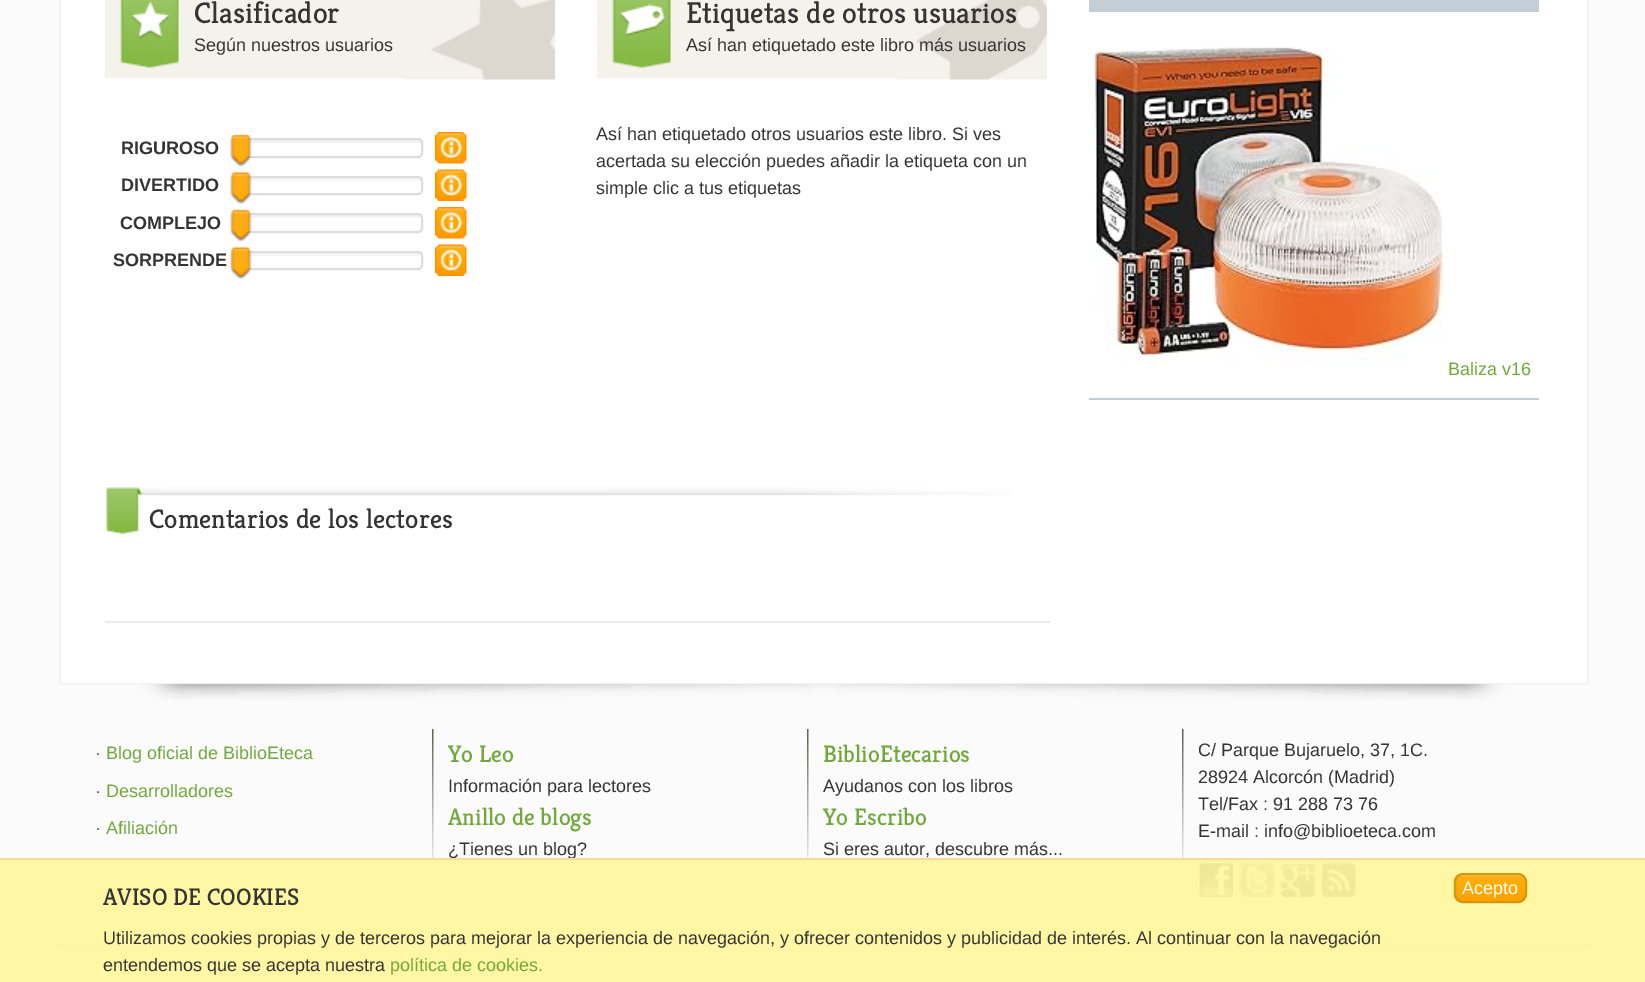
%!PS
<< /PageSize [1645 982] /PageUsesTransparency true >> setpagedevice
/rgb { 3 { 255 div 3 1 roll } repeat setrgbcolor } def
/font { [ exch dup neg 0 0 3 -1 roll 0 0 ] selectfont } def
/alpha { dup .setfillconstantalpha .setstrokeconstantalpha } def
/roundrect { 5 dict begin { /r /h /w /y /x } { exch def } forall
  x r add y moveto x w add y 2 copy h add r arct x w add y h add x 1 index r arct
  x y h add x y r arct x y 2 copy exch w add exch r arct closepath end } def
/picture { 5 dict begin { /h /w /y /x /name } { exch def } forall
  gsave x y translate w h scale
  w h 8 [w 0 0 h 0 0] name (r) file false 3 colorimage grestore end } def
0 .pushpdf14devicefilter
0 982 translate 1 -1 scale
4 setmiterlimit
251 251 251 rgb
0 0 1645 982 rectfill
[
  [61 0 1526 683 255 255 255]
  [1587 0 2 684 242 242 242]
  [59 683 1530 2 242 242 242]
  [59 0 2 684 242 242 242]
] { aload pop rgb rectfill } forall
(img/1.rgb) 105 0 300 78 picture
(img/2.rgb) 131 1 39 38 picture
(img/3.rgb) 405 0 150 80 picture
244 243 243 rgb
240 139 183 4 rectfill
221 221 221 rgb
2 setlinewidth
241 139 181 18 4 roundrect stroke
(img/4.rgb) 229 134 23 33 picture
(img/5.rgb) 435 132 32 32 picture
246 244 245 rgb
240 177 183 4 rectfill
221 221 221 rgb
241 177 181 17 4 roundrect stroke
(img/6.rgb) 229 172 23 32 picture
(img/7.rgb) 435 169 32 32 picture
244 243 243 rgb
240 214 183 4 rectfill
221 221 221 rgb
241 214 181 18 4 roundrect stroke
(img/4.rgb) 229 209 23 33 picture
(img/5.rgb) 435 207 32 32 picture
246 244 245 rgb
240 252 183 4 rectfill
221 221 221 rgb
241 252 181 17 4 roundrect stroke
(img/6.rgb) 229 247 23 32 picture
(img/7.rgb) 435 244 32 32 picture
(img/8.rgb) 597 0 300 78 picture
(img/9.rgb) 619 4 46 32 picture
(img/10.rgb) 897 0 150 80 picture
196 206 215 rgb
1089 398 450 2 rectfill
1089 0 450 12 rectfill
(img/11.rgb) 1095 47 348 317 picture
(img/12.rgb) 106 487 906 48 picture
234 234 234 rgb
105 621 945 2 rectfill
(img/13.rgb) 59 684 1530 16 picture
(img/14.rgb) 432 729 2 154 picture
(img/14.rgb) 807 729 2 154 picture
(img/14.rgb) 1182 729 2 154 picture
(img/15.rgb) 1198 862 37 35 picture
(img/16.rgb) 1239 862 36 35 picture
(img/17.rgb) 1279 863 37 34 picture
(img/18.rgb) 1321 862 35 35 picture
233 233 231 rgb
58 944 1531 3 rectfill
0.9 alpha
255 247 155 rgb
0 860 1645 122 rectfill
1 alpha
(img/19.rgb) 1453 874 74 29 picture
209 153 18 rgb
1455 874 71 28 8 roundrect stroke
/Kreon-Light 30 font
52 52 52 rgb
194 23 moveto (Clasificador) show
/LiberationSans-Regular 18 font
194 51 moveto (Según nuestros usuarios) show
/LiberationSans-Bold 18 font
[
  [(RIGUROSO) 121 154]
  [(DIVERTIDO) 121 191]
  [(COMPLEJO) 120 229]
  [(SORPRENDE) 113 266]
] { aload pop moveto show } forall
/Kreon-Light 30 font
686 23 moveto (Etiquetas de otros usuarios) show
/LiberationSans-Regular 18 font
[
  [(Así han etiquetado este libro más usuarios) 686 51]
  [(Así han etiquetado otros usuarios este libro. Si ves) 596 140]
  [(acertada su elección puedes añadir la etiqueta con un) 596 167]
  [(simple clic a tus etiquetas) 596 194]
] { aload pop moveto show } forall
112 168 59 rgb
1448 375 moveto (Baliza v16) show
/Kreon-Light 27 font
52 52 52 rgb
149 528 moveto (Comentarios de los lectores) show
/LiberationSans-Regular 18 font
95 759 moveto (·) show
112 168 59 rgb
106 759 moveto (Blog oficial de BiblioEteca) show
52 52 52 rgb
95 797 moveto (·) show
112 168 59 rgb
106 797 moveto (Desarrolladores) show
52 52 52 rgb
95 834 moveto (·) show
112 168 59 rgb
106 834 moveto (Afiliación) show
/Kreon-Light 24 font
448 762 moveto (Yo Leo) show
/LiberationSans-Regular 18 font
52 52 52 rgb
448 792 moveto (Información para lectores) show
/Kreon-Light 24 font
112 168 59 rgb
448 825 moveto (Anillo de blogs) show
/LiberationSans-Regular 18 font
52 52 52 rgb
448 855 moveto (¿Tienes un blog?) show
/Kreon-Light 24 font
112 168 59 rgb
823 762 moveto (BiblioEtecarios) show
/LiberationSans-Regular 18 font
52 52 52 rgb
823 792 moveto (Ayudanos con los libros) show
/Kreon-Light 24 font
112 168 59 rgb
823 825 moveto (Yo Escribo) show
/LiberationSans-Regular 18 font
52 52 52 rgb
[
  [(Si eres autor, descubre más...) 823 855]
  [(C/ Parque Bujaruelo, 37, 1C.) 1198 756]
  [(28924 Alcorcón \(Madrid\)) 1198 783]
  [(Tel/Fax : 91 288 73 76) 1198 810]
  [(E-mail : info@biblioeteca.com) 1198 837]
] { aload pop moveto show } forall
255 218 150 rgb
0 858 1645 2 rectfill
/Kreon-Light 24 font
52 52 52 rgb
103 905 moveto (AVISO DE COOKIES) show
/LiberationSans-Regular 18 font
255 255 255 rgb
1462 894 moveto (Acepto) show
52 52 52 rgb
103 944 moveto (Utilizamos cookies propias y de terceros para mejorar la experiencia de navegación, y ofrecer contenidos y publicidad de interés. Al continuar con la navegación) show
103 971 moveto (entendemos que se acepta nuestra) show
112 168 59 rgb
390 971 moveto (política de cookies.) show
.poppdf14devicefilter showpage
